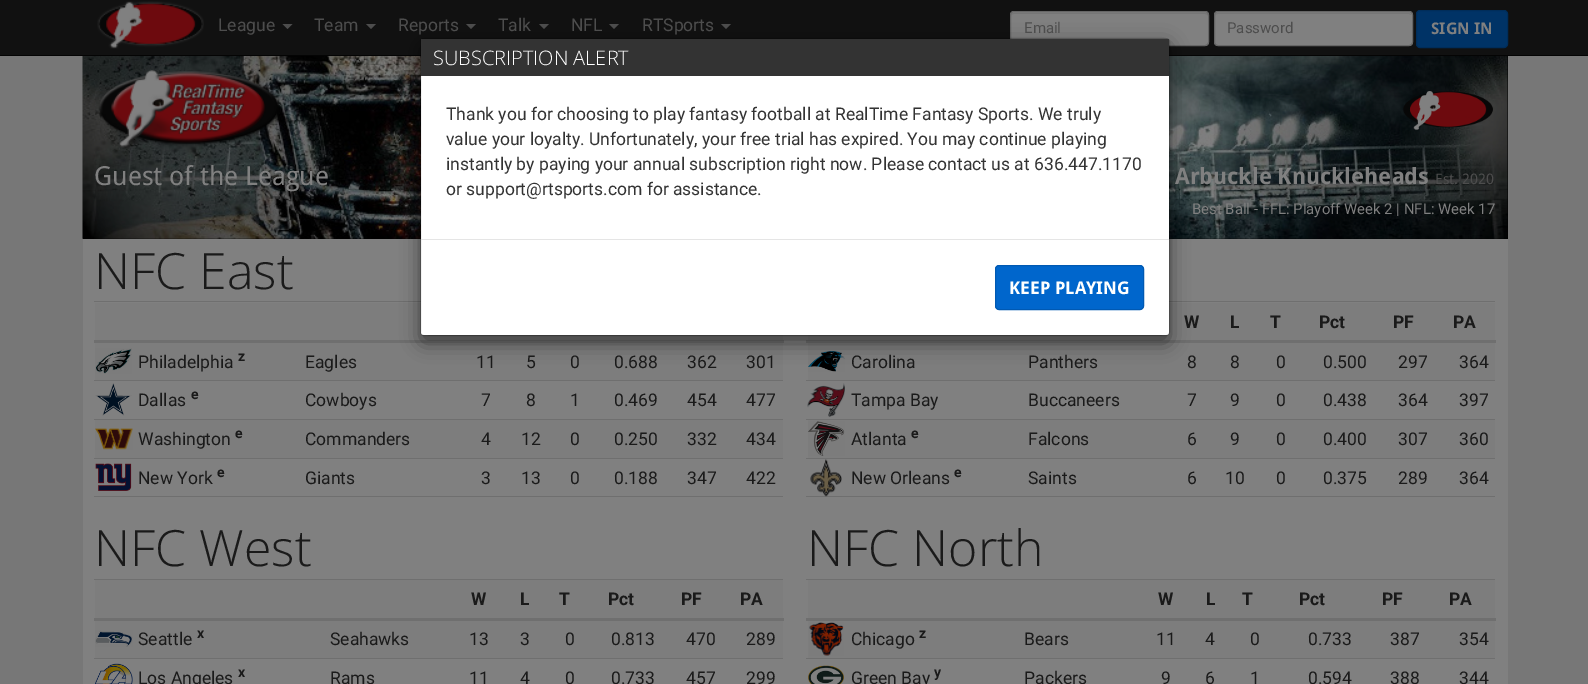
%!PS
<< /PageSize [1588 684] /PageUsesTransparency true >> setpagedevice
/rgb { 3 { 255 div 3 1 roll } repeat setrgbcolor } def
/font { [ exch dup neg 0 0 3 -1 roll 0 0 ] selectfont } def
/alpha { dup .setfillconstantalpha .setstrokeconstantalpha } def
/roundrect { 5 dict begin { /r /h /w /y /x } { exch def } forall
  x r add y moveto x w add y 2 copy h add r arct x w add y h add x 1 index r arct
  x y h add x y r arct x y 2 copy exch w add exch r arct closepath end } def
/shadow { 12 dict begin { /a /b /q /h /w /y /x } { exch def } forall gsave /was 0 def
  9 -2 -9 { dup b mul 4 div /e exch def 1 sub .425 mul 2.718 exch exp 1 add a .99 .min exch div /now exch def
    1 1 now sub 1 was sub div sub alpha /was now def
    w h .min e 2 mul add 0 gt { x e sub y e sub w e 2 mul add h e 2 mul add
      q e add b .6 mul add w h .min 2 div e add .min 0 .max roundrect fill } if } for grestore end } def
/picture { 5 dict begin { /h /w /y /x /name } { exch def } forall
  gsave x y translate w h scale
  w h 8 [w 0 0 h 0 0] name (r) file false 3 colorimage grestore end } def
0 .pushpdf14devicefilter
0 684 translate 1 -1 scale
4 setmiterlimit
119 119 119 rgb
0 0 1588 684 rectfill
17 17 17 rgb
0 0 1588 55 rectfill
4 4 4 rgb
0 55 1588 1 rectfill
(img/1.rgb) 97 1 107 48 picture
77 77 77 rgb
282.5 24 moveto 292.5 24 lineto 287.5 29 lineto closepath fill
366 24 moveto 376 24 lineto 371 29 lineto closepath fill
466 24 moveto 476 24 lineto 471 29 lineto closepath fill
539 24 moveto 549 24 lineto 544 29 lineto closepath fill
609 24 moveto 619 24 lineto 614 29 lineto closepath fill
721 24 moveto 731 24 lineto 726 29 lineto closepath fill
128 128 128 rgb
1010 11 199 35 4 roundrect fill
118 118 118 rgb
1014 14 moveto 1205 14 lineto 1206 14 1208 15 1208 16 curveto 1208 14 lineto 1206 13 lineto 1014 13 lineto 1012 13 1011 14 1011 16 curveto 1011 15 1012 14 1014 14 curveto closepath fill
102 102 102 rgb
1010.5 11.5 198 34 3.5 roundrect stroke
128 128 128 rgb
1214 11 199 35 4 roundrect fill
118 118 118 rgb
1218 14 moveto 1409 14 lineto 1411 15 lineto 1411 16 lineto 1411 14 lineto 1409 13 lineto 1218 13 lineto 1216 13 1215 14 1215 16 curveto 1215 15 1216 14 1218 14 curveto closepath fill
102 102 102 rgb
1214.5 11.5 198 34 3.5 roundrect stroke
0 51 102 rgb
1416.5 10.5 91 37 3.5 roundrect gsave fill grestore
0 45 90 rgb
stroke
128 128 128 rgb
83 239 1425 445 rectfill
0 0 0 rgb
83 56 1425 183 rectfill
(img/2.rgb) 82 56 1426 183 picture
[
  [95 303 688 37 125 125 125]
  [94 301 327 1 111 111 111]
  [94 340 690 3 111 111 111]
  [95 343 688 37 125 125 125]
  [808 303 687 37 125 125 125]
  [1169 301 326 1 111 111 111]
  [806 340 690 3 111 111 111]
  [808 343 687 37 125 125 125]
] { aload pop rgb rectfill } forall
(img/9.rgb) 808 351 37 21 picture
0 0 0 rgb
420 44 750 299 4 9.5 0.5 shadow
255 255 255 rgb
421 39 748 296 2.5 roundrect fill
0.2 alpha
0 0 0 rgb
420.5 38.5 749 297 3.5 roundrect stroke
1 alpha
51 51 51 rgb
421 39 748 37 rectfill
229 229 229 rgb
421 239 748 1 rectfill
0 102 204 rgb
995.5 265.5 148 44 3.5 roundrect gsave fill grestore
0 89 179 rgb
stroke
(img/3.rgb) 98 70 184 79 picture
(img/4.rgb) 1403 91 90 39 picture
(img/5.rgb) 95 348 37 26 picture
(img/6.rgb) 95 383 37 33 picture
111 111 111 rgb
94 380 689 1 rectfill
125 125 125 rgb
95 420 688 38 rectfill
(img/7.rgb) 95 428 38 22 picture
111 111 111 rgb
94 419 689 1 rectfill
(img/8.rgb) 95 463 37 28 picture
94 458 689 1 rectfill
94 496 689 1 rectfill
(img/10.rgb) 807 383 38 34 picture
806 380 689 1 rectfill
125 125 125 rgb
808 420 687 38 rectfill
(img/11.rgb) 808 421 37 35 picture
111 111 111 rgb
806 419 689 1 rectfill
806 496 689 1 rectfill
(img/12.rgb) 810 459 32 38 picture
[
  [806 458 689 1 111 111 111]
  [95 580 688 38 125 125 125]
  [94 579 689 1 111 111 111]
  [94 618 690 3 111 111 111]
  [95 621 688 37 125 125 125]
] { aload pop rgb rectfill } forall
(img/13.rgb) 95 630 38 17 picture
(img/14.rgb) 95 663 38 21 picture
[
  [94 658 689 1 111 111 111]
  [808 580 687 38 125 125 125]
  [806 579 689 1 111 111 111]
  [806 618 690 3 111 111 111]
  [808 621 687 37 125 125 125]
] { aload pop rgb rectfill } forall
(img/15.rgb) 809 622 35 34 picture
(img/16.rgb) 808 665 36 19 picture
111 111 111 rgb
806 658 689 1 rectfill
/Roboto-Regular 17.5 font
77 77 77 rgb
[
  [(League) 218 31]
  [(Team) 314 31]
  [(Reports) 398 31]
  [(Talk) 498 31]
  [(NFL) 571 31]
  [(RTSports) 642 31]
] { aload pop moveto show } forall
/Roboto-Regular 15 font
1024 33 moveto (Email) show
1227 33 moveto (Password) show
/DroidSans-Bold 16 font
128 128 128 rgb
1431 34 moveto (SIGN IN) show
/OpenSans-Light 20 font
255 255 255 rgb
433 65 moveto (SUBSCRIPTION ALERT) show
/Roboto-Regular 17.5 font
51 51 51 rgb
[
  [(Thank you for choosing to play fantasy football at RealTime Fantasy Sports. We truly) 446 120]
  [(value your loyalty. Unfortunately, your free trial has expired. You may continue playing) 446 145]
  [(instantly by paying your annual subscription right now. Please contact us at 636.447.1170) 446 170]
  [(or support@rtsports.com for assistance.) 446 195]
] { aload pop moveto show } forall
/DroidSans-Bold 17.5 font
255 255 255 rgb
1009 294 moveto (KEEP PLAYING) show
/DroidSans-Regular 26.25 font
128 128 128 rgb
94 185 moveto (Guest of the League) show
/DroidSans-Bold 22.5 font
1175 184 moveto (Arbuckle Knuckleheads) show
/DroidSans-Regular 14.5 font
77 77 77 rgb
1435 184 moveto (Est. 2020) show
/Roboto-Regular 14.9 font
128 128 128 rgb
1192 214 moveto (Best Ball - FFL: Playoff Week 2 | NFL: Week 17) show
/OpenSans-Light 50 font
26 26 26 rgb
94 289 moveto (NFC East) show
/Roboto-Regular 17.5 font
138 368 moveto (Philadelphia) show
/Roboto-Bold 14 font
238 361 moveto (z) show
/Roboto-Regular 17.5 font
[
  [(Eagles) 305 368]
  [(11) 476 368]
  [(5) 526 368]
  [(0) 570 368]
  [(0.688) 614 368]
  [(362) 687 368]
  [(301) 746 368]
  [(Dallas) 138 406]
] { aload pop moveto show } forall
/Roboto-Bold 14 font
191 399 moveto (e) show
/Roboto-Regular 17.5 font
[
  [(Cowboys) 305 406]
  [(7) 481 406]
  [(8) 526 406]
  [(1) 570 406]
  [(0.469) 614 406]
  [(454) 687 406]
  [(477) 746 406]
  [(Washington) 138 445]
] { aload pop moveto show } forall
/Roboto-Bold 14 font
235 438 moveto (e) show
/Roboto-Regular 17.5 font
[
  [(Commanders) 305 445]
  [(4) 481 445]
  [(12) 521 445]
  [(0) 570 445]
  [(0.250) 614 445]
  [(332) 687 445]
  [(434) 746 445]
  [(New York) 138 484]
] { aload pop moveto show } forall
/Roboto-Bold 14 font
217 477 moveto (e) show
/Roboto-Regular 17.5 font
[
  [(Giants) 305 484]
  [(3) 481 484]
  [(13) 521 484]
  [(0) 570 484]
  [(0.188) 614 484]
  [(347) 687 484]
  [(422) 746 484]
] { aload pop moveto show } forall
/Roboto-Bold 17.5 font
[
  [(W) 1184 328]
  [(L) 1230 328]
  [(T) 1270 328]
  [(Pct) 1319 328]
  [(PF) 1393 328]
  [(PA) 1453 328]
] { aload pop moveto show } forall
/Roboto-Regular 17.5 font
[
  [(Carolina) 851 368]
  [(Panthers) 1028 368]
  [(8) 1187 368]
  [(8) 1230 368]
  [(0) 1276 368]
  [(0.500) 1323 368]
  [(297) 1398 368]
  [(364) 1459 368]
  [(Tampa Bay) 851 406]
  [(Buccaneers) 1028 406]
  [(7) 1187 406]
  [(9) 1230 406]
  [(0) 1276 406]
  [(0.438) 1323 406]
  [(364) 1398 406]
  [(397) 1459 406]
  [(Atlanta) 851 445]
] { aload pop moveto show } forall
/Roboto-Bold 14 font
911 438 moveto (e) show
/Roboto-Regular 17.5 font
[
  [(Falcons) 1028 445]
  [(6) 1187 445]
  [(9) 1230 445]
  [(0) 1276 445]
  [(0.400) 1323 445]
  [(307) 1398 445]
  [(360) 1459 445]
  [(New Orleans) 851 484]
] { aload pop moveto show } forall
/Roboto-Bold 14 font
954 477 moveto (e) show
/Roboto-Regular 17.5 font
[
  [(Saints) 1028 484]
  [(6) 1187 484]
  [(10) 1225 484]
  [(0) 1276 484]
  [(0.375) 1323 484]
  [(289) 1398 484]
  [(364) 1459 484]
] { aload pop moveto show } forall
/OpenSans-Light 50 font
94 566 moveto (NFC West) show
/Roboto-Bold 17.5 font
[
  [(W) 471 605]
  [(L) 520 605]
  [(T) 559 605]
  [(Pct) 608 605]
  [(PF) 681 605]
  [(PA) 740 605]
] { aload pop moveto show } forall
/Roboto-Regular 17.5 font
138 645 moveto (Seattle) show
/Roboto-Bold 14 font
197 638 moveto (x) show
/Roboto-Regular 17.5 font
[
  [(Seahawks) 330 645]
  [(13) 469 645]
  [(3) 520 645]
  [(0) 565 645]
  [(0.813) 611 645]
  [(470) 686 645]
  [(289) 746 645]
  [(Los Angeles) 138 684]
] { aload pop moveto show } forall
/Roboto-Bold 14 font
238 677 moveto (x) show
/Roboto-Regular 17.5 font
[
  [(Rams) 330 684]
  [(11) 469 684]
  [(4) 520 684]
  [(0) 565 684]
  [(0.733) 611 684]
  [(457) 686 684]
  [(299) 746 684]
] { aload pop moveto show } forall
/OpenSans-Light 50 font
807 566 moveto (NFC North) show
/Roboto-Bold 17.5 font
[
  [(W) 1158 605]
  [(L) 1206 605]
  [(T) 1242 605]
  [(Pct) 1299 605]
  [(PF) 1382 605]
  [(PA) 1449 605]
] { aload pop moveto show } forall
/Roboto-Regular 17.5 font
851 645 moveto (Chicago) show
/Roboto-Bold 14 font
919 638 moveto (z) show
/Roboto-Regular 17.5 font
[
  [(Bears) 1024 645]
  [(11) 1156 645]
  [(4) 1205 645]
  [(0) 1250 645]
  [(0.733) 1308 645]
  [(387) 1390 645]
  [(354) 1459 645]
  [(Green Bay) 851 684]
] { aload pop moveto show } forall
/Roboto-Bold 14 font
934 677 moveto (y) show
/Roboto-Regular 17.5 font
[
  [(Packers) 1024 684]
  [(9) 1161 684]
  [(6) 1205 684]
  [(1) 1250 684]
  [(0.594) 1308 684]
  [(388) 1390 684]
  [(344) 1459 684]
] { aload pop moveto show } forall
.poppdf14devicefilter showpage
